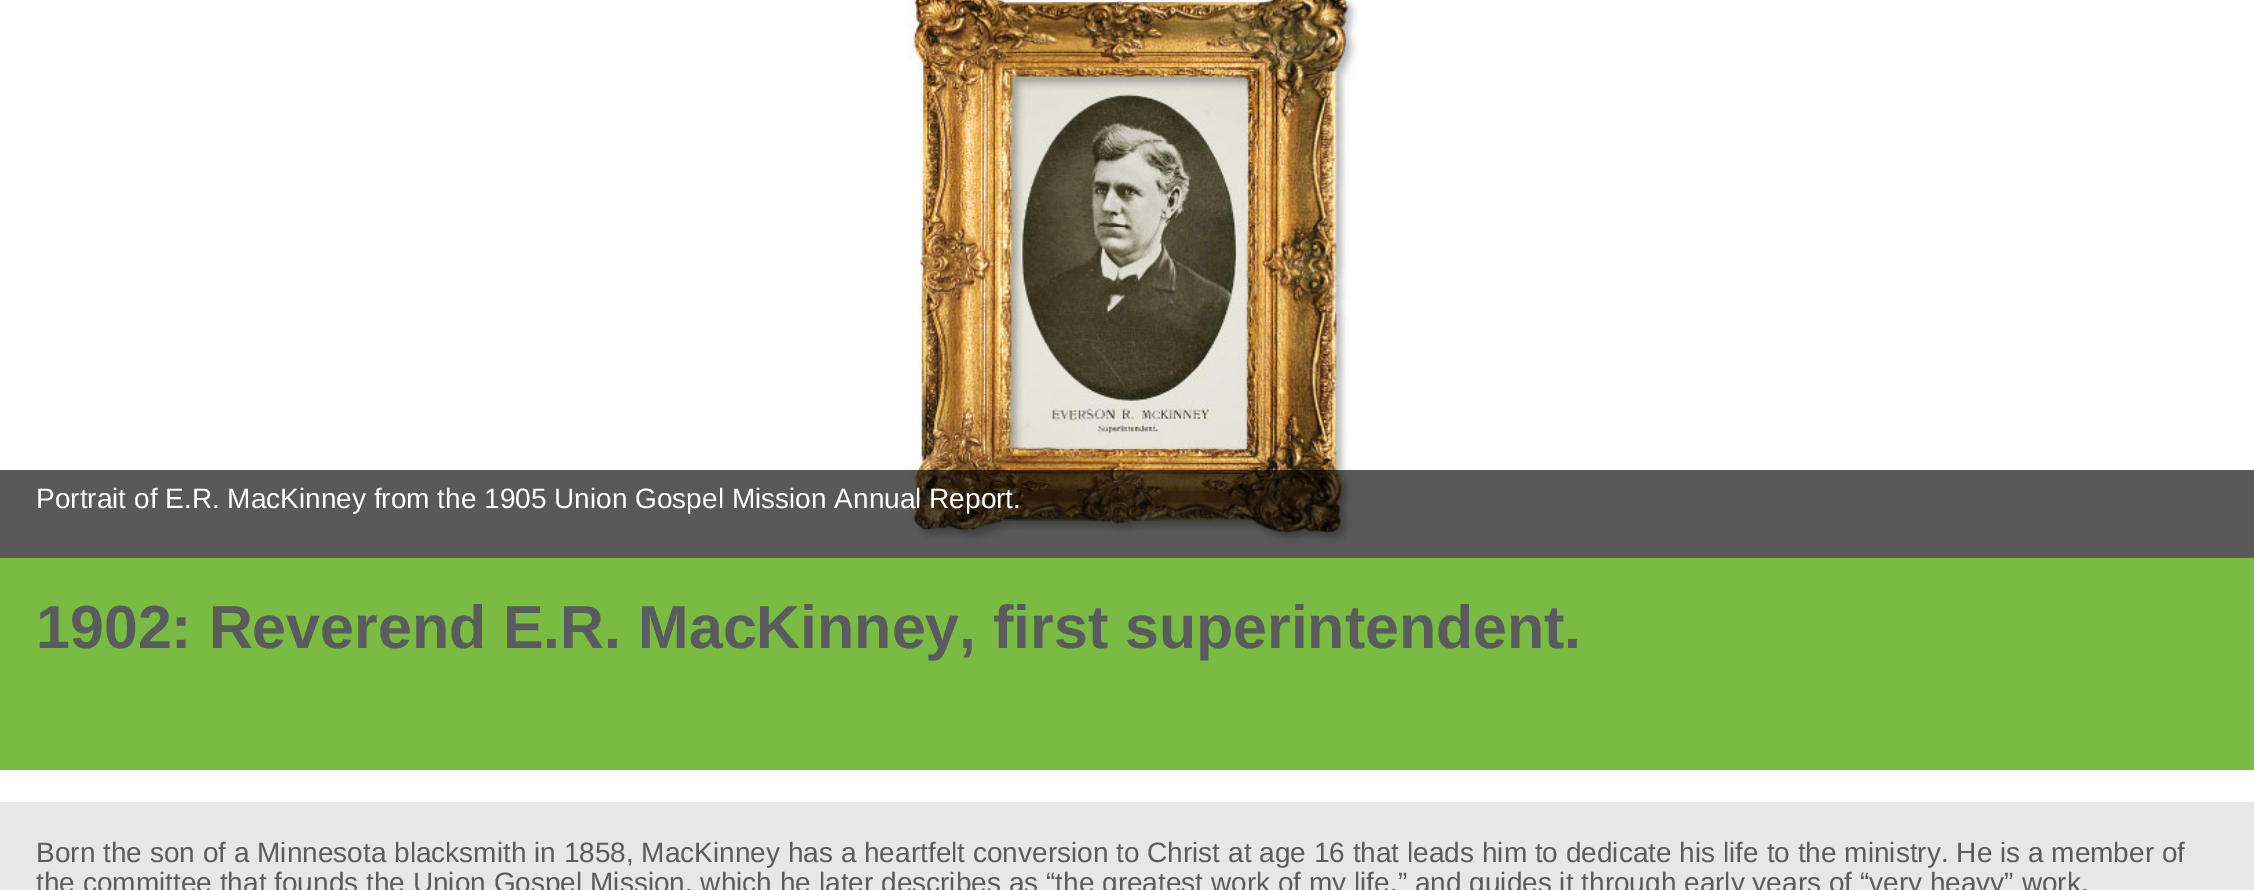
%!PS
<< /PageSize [2254 890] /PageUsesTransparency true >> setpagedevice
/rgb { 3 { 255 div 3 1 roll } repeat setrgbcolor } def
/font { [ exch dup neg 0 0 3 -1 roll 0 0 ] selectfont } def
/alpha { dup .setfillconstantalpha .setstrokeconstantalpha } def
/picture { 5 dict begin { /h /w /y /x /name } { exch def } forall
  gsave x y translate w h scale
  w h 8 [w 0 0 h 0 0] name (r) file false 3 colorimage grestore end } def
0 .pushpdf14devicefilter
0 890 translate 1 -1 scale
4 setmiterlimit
255 255 255 rgb
0 0 2254 890 rectfill
(img/1.rgb) 908 0 450 543 picture
0.65 alpha
[
  [0 470 2254 88 0 0 0]
] { aload pop rgb rectfill } forall
1 alpha
[
  [0 558 2254 212 122 187 67]
  [0 802 2254 88 231 231 232]
] { aload pop rgb rectfill } forall
/LiberationSans-Regular 28 font
255 255 255 rgb
36 508 moveto (Portrait of E.R. MacKinney from the 1905 Union Gospel Mission Annual Report.) show
/LiberationSans-Bold 60.85 font
90 91 93 rgb
36 648 moveto (1902: Reverend E.R. MacKinney, first superintendent.) show
/LiberationSans-Regular 28 font
36 862 moveto (Born the son of a Minnesota blacksmith in 1858, MacKinney has a heartfelt conversion to Christ at age 16 that leads him to dedicate his life to the ministry. He is a member of) show
36 892 moveto (the committee that founds the Union Gospel Mission, which he later describes as “the greatest work of my life,” and guides it through early years of “very heavy” work.) show
.poppdf14devicefilter showpage
